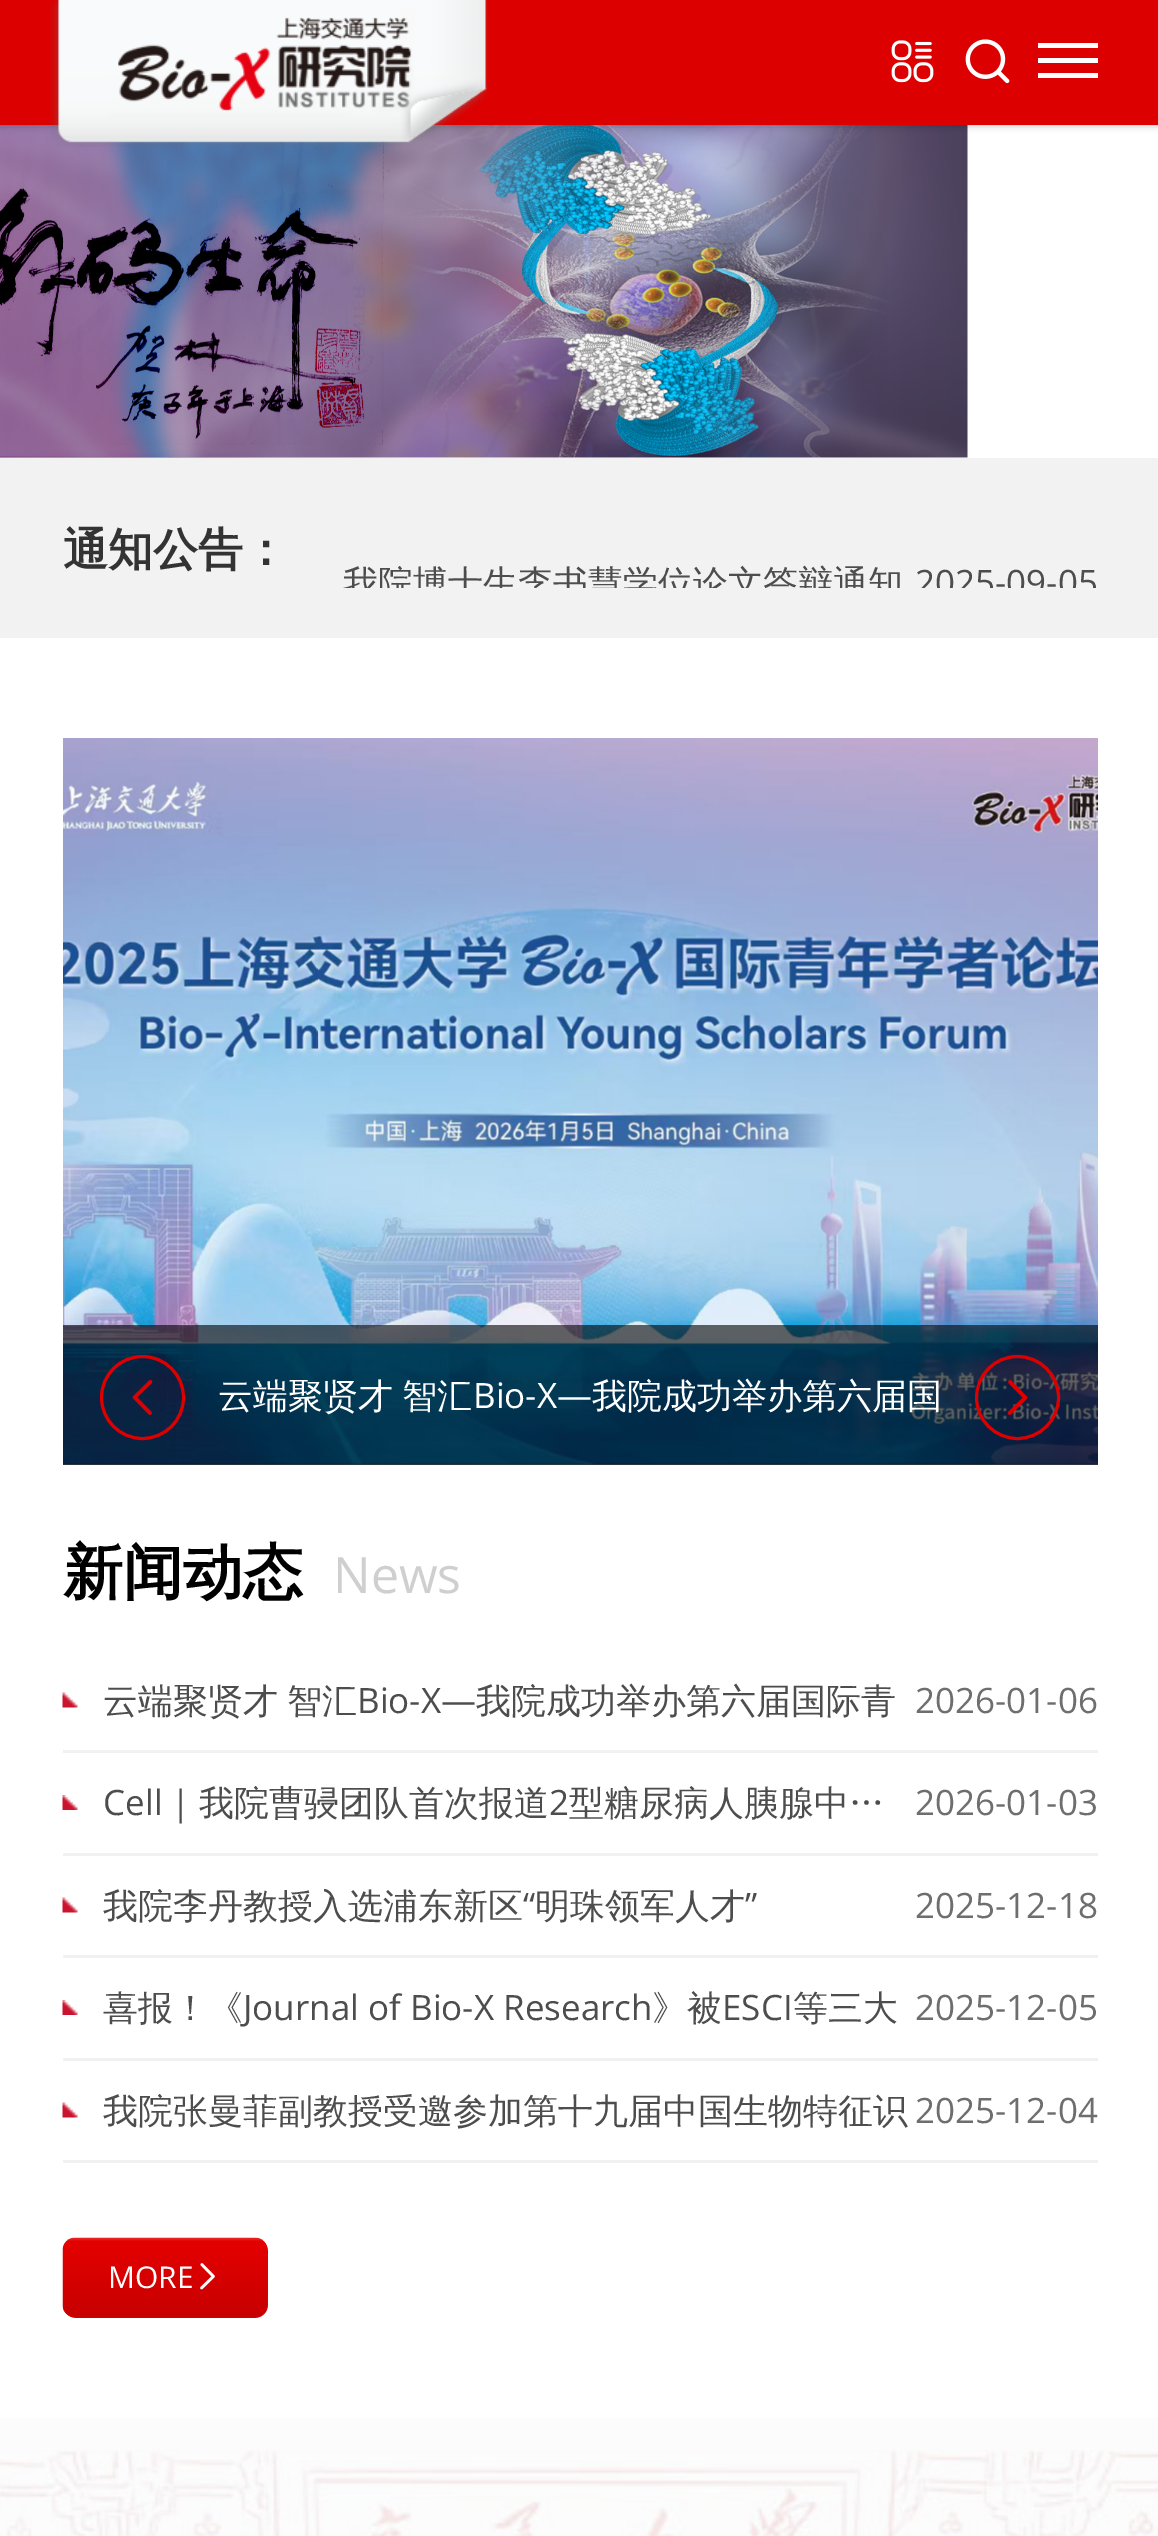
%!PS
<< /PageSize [1158 2536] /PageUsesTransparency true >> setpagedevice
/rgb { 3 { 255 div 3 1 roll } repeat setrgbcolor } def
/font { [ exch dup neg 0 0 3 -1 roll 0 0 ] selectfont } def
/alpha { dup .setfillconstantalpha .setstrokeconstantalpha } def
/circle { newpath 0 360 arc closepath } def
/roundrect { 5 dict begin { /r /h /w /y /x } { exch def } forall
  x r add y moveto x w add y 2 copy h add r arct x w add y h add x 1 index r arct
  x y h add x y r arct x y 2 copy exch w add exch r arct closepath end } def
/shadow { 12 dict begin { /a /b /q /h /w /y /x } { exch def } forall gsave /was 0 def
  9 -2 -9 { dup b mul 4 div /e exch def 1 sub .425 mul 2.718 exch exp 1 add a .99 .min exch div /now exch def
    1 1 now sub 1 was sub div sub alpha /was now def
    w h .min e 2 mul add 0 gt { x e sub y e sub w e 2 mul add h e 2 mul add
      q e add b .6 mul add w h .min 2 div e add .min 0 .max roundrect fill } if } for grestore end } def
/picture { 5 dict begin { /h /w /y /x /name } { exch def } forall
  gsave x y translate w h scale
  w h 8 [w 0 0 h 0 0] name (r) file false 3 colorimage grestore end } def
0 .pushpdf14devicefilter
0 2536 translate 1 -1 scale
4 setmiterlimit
255 255 255 rgb
0 0 1158 2536 rectfill
(img/4.rgb) 0 125 968 333 picture
0 0 0 rgb
0 0 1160 125 0 4 0.3 shadow
220 0 0 rgb
0 0 1158 125 rectfill
(img/1.rgb) 50 0 439 147 picture
(img/2.rgb) 891 40 43 43 picture
(img/3.rgb) 965 39 45 45 picture
[
  [1038 58 60 5 255 255 255]
  [1038 43 60 5 255 255 255]
  [1038 73 60 5 255 255 255]
  [0 458 1158 180 242 242 242]
  [88 1464 1010 1 235 235 235]
] { aload pop rgb rectfill } forall
(img/6.rgb) 63 738 1035 727 picture
0.6 alpha
0 0 0 rgb
63 1325 1035 140 rectfill
1 alpha
220 0 0 rgb
3 setlinewidth
142.5 1397.5 41 circle stroke
(img/5.rgb) 132 1380 21 35 picture
1017.5 1397.5 41 circle stroke
(img/7.rgb) 1007 1380 21 35 picture
241 241 241 rgb
63 1750 1035 3 rectfill
(img/8.rgb) 62 1692 16 16 picture
63 1853 1035 3 rectfill
(img/9.rgb) 62 1795 16 15 picture
63 1955 1035 3 rectfill
(img/8.rgb) 62 1897 16 16 picture
63 2058 1035 3 rectfill
(img/9.rgb) 62 2000 16 15 picture
63 2160 1035 3 rectfill
(img/8.rgb) 62 2102 16 16 picture
220 0 0 rgb
63 2238 205 80 13 roundrect fill
(img/10.rgb) 62 2237 206 81 picture
(img/11.rgb) 200 2263 15 27 picture
252 252 252 rgb
0 2418 1158 32 rectfill
(img/12.rgb) 0 2450 1158 86 picture
/WenQuanYiZenHei-Bold 45 font
51 51 51 rgb
63 565 moveto (通知公告：) show
gsave
343 543 572 45 rectclip
/WenQuanYiZenHei-Medium 35 font
77 77 77 rgb
343 595 moveto (我院博士生李书慧学位论文答辩通知) show
grestore
gsave
343 508 755 80 rectclip
/OpenSans-Regular 35 font
77 77 77 rgb
915 595 moveto (2025-09-05) show
grestore
/WenQuanYiZenHei-Medium 35 font
255 255 255 rgb
218 1408 moveto -1 0 32 (云端聚贤才 智汇) widthshow
/OpenSans-Regular 35 font
473 1408 moveto (Bio-X—) show
/WenQuanYiZenHei-Medium 35 font
592 1408 moveto (我院成功举办第六届国) show
/WenQuanYiZenHei-Bold 60 font
0 0 0 rgb
63 1593 moveto (新闻动态) show
/OpenSans-Regular 50 font
207 207 207 rgb
333 1593 moveto (News) show
/WenQuanYiZenHei-Medium 35 font
77 77 77 rgb
103 1713 moveto -1 0 32 (云端聚贤才 智汇) widthshow
/OpenSans-Regular 35 font
357 1713 moveto (Bio-X—) show
/WenQuanYiZenHei-Medium 35 font
476 1713 moveto (我院成功举办第六届国际青) show
/OpenSans-Regular 35 font
110 110 110 rgb
915 1713 moveto (2026-01-06) show
77 77 77 rgb
103 1815 moveto (Cell |) show
/WenQuanYiZenHei-Medium 35 font
199 1815 moveto (我院曹骎团队首次报道) show
/OpenSans-Regular 35 font
549 1815 moveto (2) show
/WenQuanYiZenHei-Medium 35 font
569 1815 moveto (型糖尿病人胰腺中…) show
/OpenSans-Regular 35 font
110 110 110 rgb
915 1815 moveto (2026-01-03) show
/WenQuanYiZenHei-Medium 35 font
77 77 77 rgb
103 1918 moveto (我院李丹教授入选浦东新区) show
/OpenSans-Regular 35 font
523 1918 moveto (“) show
/WenQuanYiZenHei-Medium 35 font
535 1918 moveto (明珠领军人才) show
/OpenSans-Regular 35 font
745 1918 moveto (”) show
110 110 110 rgb
915 1918 moveto (2025-12-18) show
/WenQuanYiZenHei-Medium 35 font
77 77 77 rgb
103 2020 moveto (喜报！《) show
/OpenSans-Regular 35 font
243 2020 moveto (Journal of Bio-X Research) show
/WenQuanYiZenHei-Medium 35 font
652 2020 moveto (》被) show
/OpenSans-Regular 35 font
722 2020 moveto (ESCI) show
/WenQuanYiZenHei-Medium 35 font
793 2020 moveto (等三大) show
/OpenSans-Regular 35 font
110 110 110 rgb
915 2020 moveto (2025-12-05) show
/WenQuanYiZenHei-Medium 35 font
77 77 77 rgb
103 2123 moveto (我院张曼菲副教授受邀参加第十九届中国生物特征识) show
/OpenSans-Regular 35 font
110 110 110 rgb
915 2123 moveto (2025-12-04) show
/OpenSans-Regular 30 font
255 255 255 rgb
108 2288 moveto (MORE) show
.poppdf14devicefilter showpage
